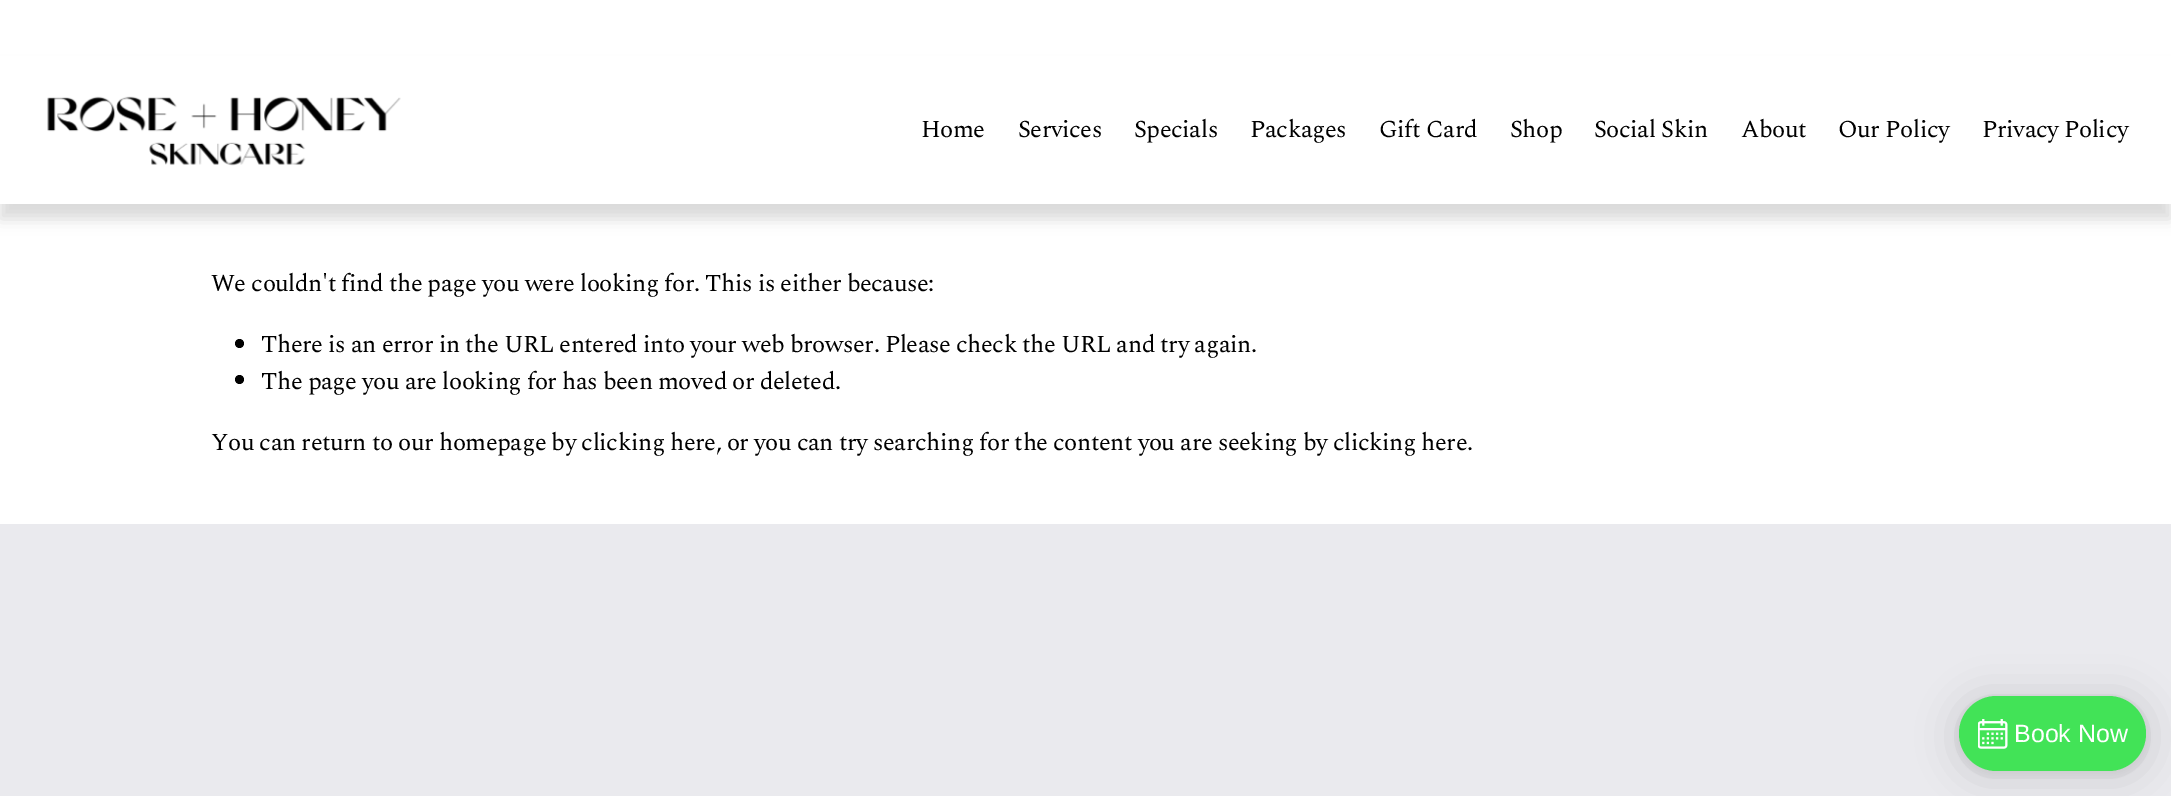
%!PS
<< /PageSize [2171 796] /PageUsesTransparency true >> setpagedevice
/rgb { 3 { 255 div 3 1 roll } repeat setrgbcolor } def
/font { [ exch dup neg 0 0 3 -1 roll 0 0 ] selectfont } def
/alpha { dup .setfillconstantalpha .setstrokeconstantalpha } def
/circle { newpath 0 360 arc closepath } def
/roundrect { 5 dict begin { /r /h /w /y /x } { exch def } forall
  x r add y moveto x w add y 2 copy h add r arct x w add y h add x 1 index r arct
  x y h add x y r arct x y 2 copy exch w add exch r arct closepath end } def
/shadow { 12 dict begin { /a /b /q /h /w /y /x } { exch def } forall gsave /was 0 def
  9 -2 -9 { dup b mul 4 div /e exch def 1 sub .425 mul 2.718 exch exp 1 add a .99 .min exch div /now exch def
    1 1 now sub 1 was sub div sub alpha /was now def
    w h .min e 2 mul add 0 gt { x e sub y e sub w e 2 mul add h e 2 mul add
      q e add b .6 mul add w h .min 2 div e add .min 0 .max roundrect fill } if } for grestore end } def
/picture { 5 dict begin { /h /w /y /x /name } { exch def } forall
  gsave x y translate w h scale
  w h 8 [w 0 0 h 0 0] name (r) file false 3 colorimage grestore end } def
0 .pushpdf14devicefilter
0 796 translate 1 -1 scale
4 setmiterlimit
255 255 255 rgb
0 0 2171 796 rectfill
gsave
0 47 moveto 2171 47 lineto 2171 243 lineto 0 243 lineto closepath 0 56 moveto 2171 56 lineto 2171 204 lineto 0 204 lineto closepath eoclip newpath
217 217 217 rgb
0 71 2171 148 0 7.5 1 shadow
grestore
(img/1.rgb) 47 96 354 70 picture
0 0 0 rgb
239.5 343.5 4.5 circle fill
239.5 379.5 4.5 circle fill
234 234 238 rgb
0 524 2171 272 rectfill
0 0 0 rgb
1959 699 187 75 37.5 20 0.16 shadow
1959 698 187 75 37.5 4 0.06 shadow
66 227 87 rgb
1959 696 187 75 37.5 roundrect fill
(img/2.rgb) 1978 719 30 30 picture
/Spectral-Regular 24.38 font
0 0 0 rgb
921 137 moveto -0.49 0 (Home) ashow
1018 137 moveto -0.49 0 (Services) ashow
1134 137 moveto -0.49 0 (Specials) ashow
1250 137 moveto -0.49 0 (Packages) ashow
1379 137 moveto -0.49 0 (Gift Card) ashow
1510 137 moveto -0.49 0 (Shop) ashow
1594 137 moveto -0.49 0 (Social Skin) ashow
1741 137 moveto -0.49 0 (About) ashow
1838 137 moveto -0.49 0 (Our Policy) ashow
1982 137 moveto -0.49 0 (Privacy Policy) ashow
211 291 moveto -0.49 0 (We couldn't find the page you were looking for. This is either because:) ashow
261 352 moveto -0.49 0 (There is an error in the URL entered into your web browser. Please check the URL and try again.) ashow
261 389 moveto -0.49 0 (The page you are looking for has been moved or deleted.) ashow
211 450 moveto -0.49 0 (You can return to our homepage by clicking here, or you can try searching for the content you are seeking by clicking here.) ashow
/LiberationSans-Regular 25 font
255 255 255 rgb
2014 742 moveto (Book Now) show
.poppdf14devicefilter showpage
